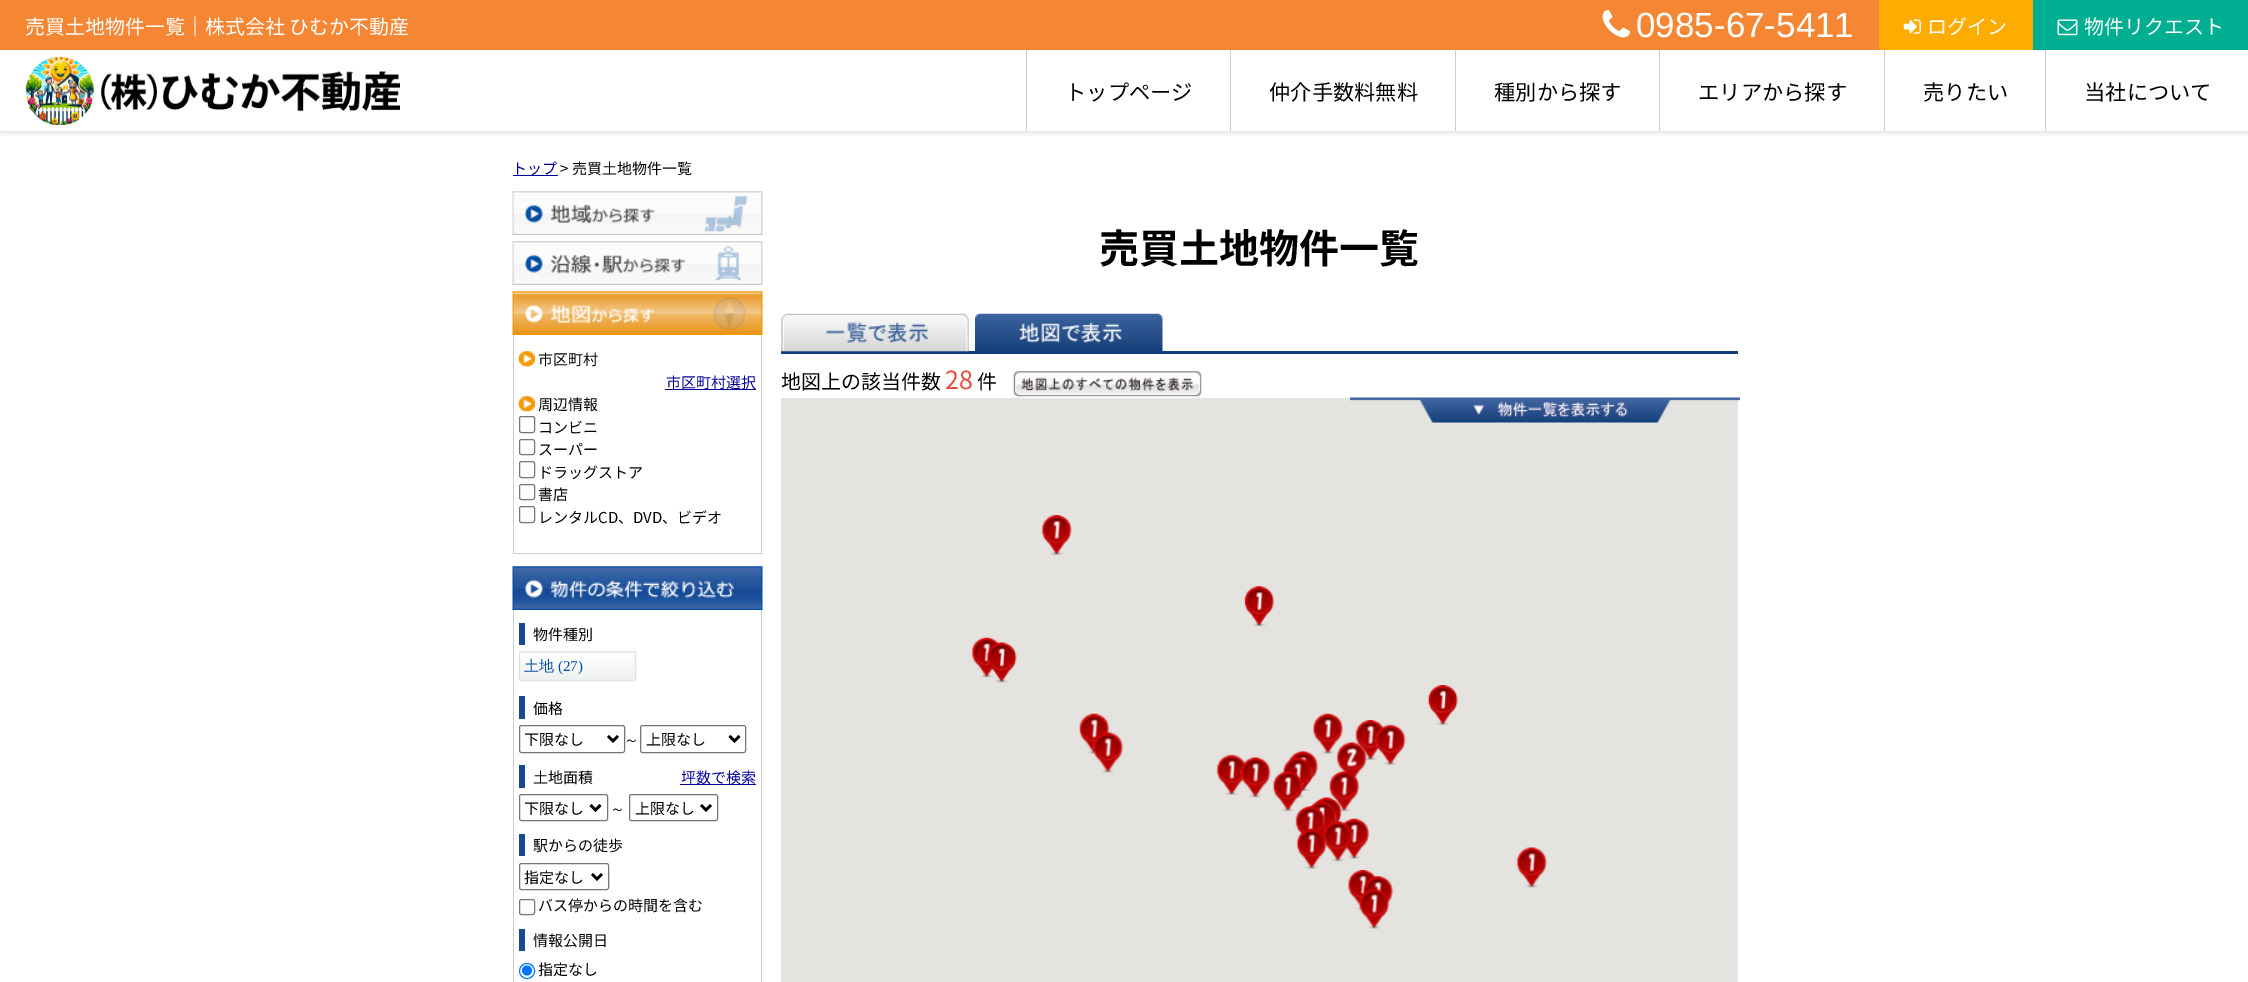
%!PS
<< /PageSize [2248 982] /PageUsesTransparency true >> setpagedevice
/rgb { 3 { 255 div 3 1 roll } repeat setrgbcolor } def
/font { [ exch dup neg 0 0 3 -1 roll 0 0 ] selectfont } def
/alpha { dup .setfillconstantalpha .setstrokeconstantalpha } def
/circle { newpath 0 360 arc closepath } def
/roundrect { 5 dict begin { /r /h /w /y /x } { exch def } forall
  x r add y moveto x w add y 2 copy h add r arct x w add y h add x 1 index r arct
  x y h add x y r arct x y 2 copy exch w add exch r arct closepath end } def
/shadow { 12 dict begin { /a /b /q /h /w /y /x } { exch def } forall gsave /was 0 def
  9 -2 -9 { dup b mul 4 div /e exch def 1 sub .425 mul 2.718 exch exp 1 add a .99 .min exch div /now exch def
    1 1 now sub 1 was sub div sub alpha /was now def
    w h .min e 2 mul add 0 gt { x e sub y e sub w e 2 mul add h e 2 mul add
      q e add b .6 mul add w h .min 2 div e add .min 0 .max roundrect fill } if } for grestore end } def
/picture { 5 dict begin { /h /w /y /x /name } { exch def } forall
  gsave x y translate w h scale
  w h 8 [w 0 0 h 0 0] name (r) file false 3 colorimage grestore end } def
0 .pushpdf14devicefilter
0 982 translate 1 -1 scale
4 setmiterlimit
255 255 255 rgb
0 0 2248 982 rectfill
gsave
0 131 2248 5 rectclip
0 0 0 rgb
0 0 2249 131 0 4 0.2 shadow
grestore
245 134 52 rgb
0 0 1879 50 rectfill
(img/1.rgb) 1602 10 28 28 picture
254 172 0 rgb
1879 0 154 50 rectfill
(img/2.rgb) 1903 19 18 15 picture
0 175 145 rgb
2033 0 215 50 rectfill
(img/3.rgb) 2057 19 21 17 picture
(img/4.rgb) 25 56 375 69 picture
[
  [1026 50 1 81 204 204 204]
  [1230 50 1 81 204 204 204]
  [1455 50 1 81 204 204 204]
  [1659 50 1 81 204 204 204]
  [1884 50 1 81 204 204 204]
  [2045 50 1 81 204 204 204]
  [513 175 45 1 0 0 153]
  [781 351 957 3 16 63 121]
] { aload pop rgb rectfill } forall
(img/5.rgb) 781 313 188 39 picture
(img/6.rgb) 975 313 188 38 picture
(img/7.rgb) 1013 371 189 26 picture
229 227 223 rgb
781 398 957 584 rectfill
(img/8.rgb) 1350 397 390 26 picture
(img/9.rgb) 1041 515 31 40 picture
(img/10.rgb) 1244 586 30 41 picture
(img/11.rgb) 971 637 29 41 picture
(img/12.rgb) 986 642 31 41 picture
(img/13.rgb) 1427 685 31 40 picture
(img/14.rgb) 1079 713 31 41 picture
(img/15.rgb) 1312 713 31 41 picture
(img/16.rgb) 1355 720 30 40 picture
(img/17.rgb) 1374 724 32 41 picture
(img/18.rgb) 1092 732 32 41 picture
(img/19.rgb) 1216 754 30 41 picture
(img/20.rgb) 1239 757 32 41 picture
(img/21.rgb) 1287 751 32 40 picture
(img/22.rgb) 1336 742 31 41 picture
(img/23.rgb) 1282 757 31 41 picture
(img/24.rgb) 1329 770 31 42 picture
(img/25.rgb) 1272 771 31 41 picture
(img/26.rgb) 1312 797 30 41 picture
(img/27.rgb) 1308 801 29 41 picture
(img/28.rgb) 1295 806 31 29 picture
(img/30.rgb) 1342 818 28 41 picture
(img/29.rgb) 1322 821 32 41 picture
(img/31.rgb) 1296 828 31 41 picture
(img/32.rgb) 1347 870 30 40 picture
(img/33.rgb) 1516 847 31 41 picture
(img/34.rgb) 1362 876 32 41 picture
(img/35.rgb) 1358 888 32 41 picture
(img/36.rgb) 512 191 251 44 picture
(img/37.rgb) 512 241 251 44 picture
(img/38.rgb) 512 291 251 44 picture
[
  [761 335 1 219 204 204 204]
  [513 553 250 1 204 204 204]
  [513 335 1 219 204 204 204]
] { aload pop rgb rectfill } forall
(img/39.rgb) 518 351 17 16 picture
0 0 153 rgb
665 389 91 1 rectfill
(img/39.rgb) 518 396 17 16 picture
118 118 118 rgb
519.5 416.5 15 16 2 roundrect stroke
519.5 439.5 15 15 2 roundrect stroke
519.5 461.5 15 16 2 roundrect stroke
519.5 484.5 15 15 2 roundrect stroke
519.5 506.5 15 16 2 roundrect stroke
(img/40.rgb) 512 566 251 44 picture
[
  [761 610 1 372 204 204 204]
  [513 610 1 372 204 204 204]
  [519 623 6 22 24 72 142]
] { aload pop rgb rectfill } forall
(img/41.rgb) 518 651 119 31 picture
519 696 6 23 rectfill
118 118 118 rgb
519.5 725.5 105 27 2 roundrect stroke
0 0 0 rgb
2.5 setlinewidth
608 736 moveto 613 741 lineto 618 736 lineto stroke
118 118 118 rgb
1 setlinewidth
640.5 725.5 105 27 2 roundrect stroke
0 0 0 rgb
2.5 setlinewidth
729.5 736 moveto 734.5 741 lineto 739.5 736 lineto stroke
24 72 142 rgb
519 765 6 23 rectfill
0 0 153 rgb
680 784 76 1 rectfill
118 118 118 rgb
1 setlinewidth
519.5 794.5 88 26 2 roundrect stroke
0 0 0 rgb
2.5 setlinewidth
590.5 805 moveto 595.5 810 lineto 600.5 805 lineto stroke
118 118 118 rgb
1 setlinewidth
629.5 794.5 88 26 2 roundrect stroke
0 0 0 rgb
2.5 setlinewidth
701 805 moveto 706 810 lineto 711 805 lineto stroke
24 72 142 rgb
519 834 6 22 rectfill
118 118 118 rgb
1 setlinewidth
519.5 863.5 89 26 2 roundrect stroke
0 0 0 rgb
2.5 setlinewidth
592 874 moveto 597 879 lineto 602 874 lineto stroke
118 118 118 rgb
1 setlinewidth
519.5 899.5 15 15 2 roundrect stroke
24 72 142 rgb
519 929 6 22 rectfill
0 117 255 rgb
527 971 7.5 circle stroke
527 970.5 5 circle fill
/NotoSansJP-Regular 20 font
255 255 255 rgb
25 34 moveto (売買土地物件一覧｜株式会社 ひむか不動産) show
/LiberationSans-Regular 35 font
1636 37 moveto (0985-67-5411) show
/NotoSansJP-Regular 20 font
1927 34 moveto (ログイン) show
2084 34 moveto (物件リクエスト) show
/NotoSansJP-Regular 21.25 font
0 0 0 rgb
[
  [(トップページ) 1065 100]
  [(仲介手数料無料) 1269 100]
  [(種別から探す) 1494 100]
  [(エリアから探す) 1698 100]
  [(売りたい) 1923 100]
  [(当社について) 2084 100]
] { aload pop moveto show } forall
/NotoSansJP-Regular 15 font
0 0 153 rgb
512 174 moveto (トップ) show
0 0 0 rgb
560 174 moveto (> 売買土地物件一覧) show
/NotoSansJP-Bold 40 font
1099 263 moveto (売買土地物件一覧) show
/NotoSansJP-Regular 20 font
781 389 moveto (地図上の該当件数) show
/NotoSansJP-Regular 25 font
231 76 60 rgb
945 389 moveto (28) show
/NotoSansJP-Regular 20 font
0 0 0 rgb
977 389 moveto (件) show
/NotoSansJP-Regular 15 font
538 365 moveto (市区町村) show
0 0 153 rgb
666 388 moveto (市区町村選択) show
0 0 0 rgb
[
  [(周辺情報) 538 410]
  [(コンビニ) 538 433]
  [(スーパー) 538 455]
  [(ドラッグストア) 538 478]
  [(書店) 538 500]
  [(レンタルCD、DVD、ビデオ) 538 523]
  [(物件種別) 533 640]
] { aload pop moveto show } forall
/WenQuanYiZenHei-Medium 15 font
0 78 162 rgb
524 671 moveto (土地) show
/LiberationSerif-Regular 15 font
558 671 moveto (\(27\)) show
/NotoSansJP-Regular 15 font
0 0 0 rgb
533 714 moveto (価格) show
524 745 moveto (下限なし) show
/WenQuanYiZenHei-Medium 15 font
624 745 moveto (～) show
/NotoSansJP-Regular 15 font
646 745 moveto (上限なし) show
533 783 moveto (土地面積) show
0 0 153 rgb
681 783 moveto (坪数で検索) show
0 0 0 rgb
524 814 moveto (下限なし) show
/WenQuanYiZenHei-Medium 15 font
610 814 moveto (～) show
/NotoSansJP-Regular 15 font
[
  [(上限なし) 635 814]
  [(駅からの徒歩) 533 851]
  [(指定なし) 524 883]
  [(バス停からの時間を含む) 538 911]
  [(情報公開日) 533 946]
  [(指定なし) 538 975]
] { aload pop moveto show } forall
.poppdf14devicefilter showpage
